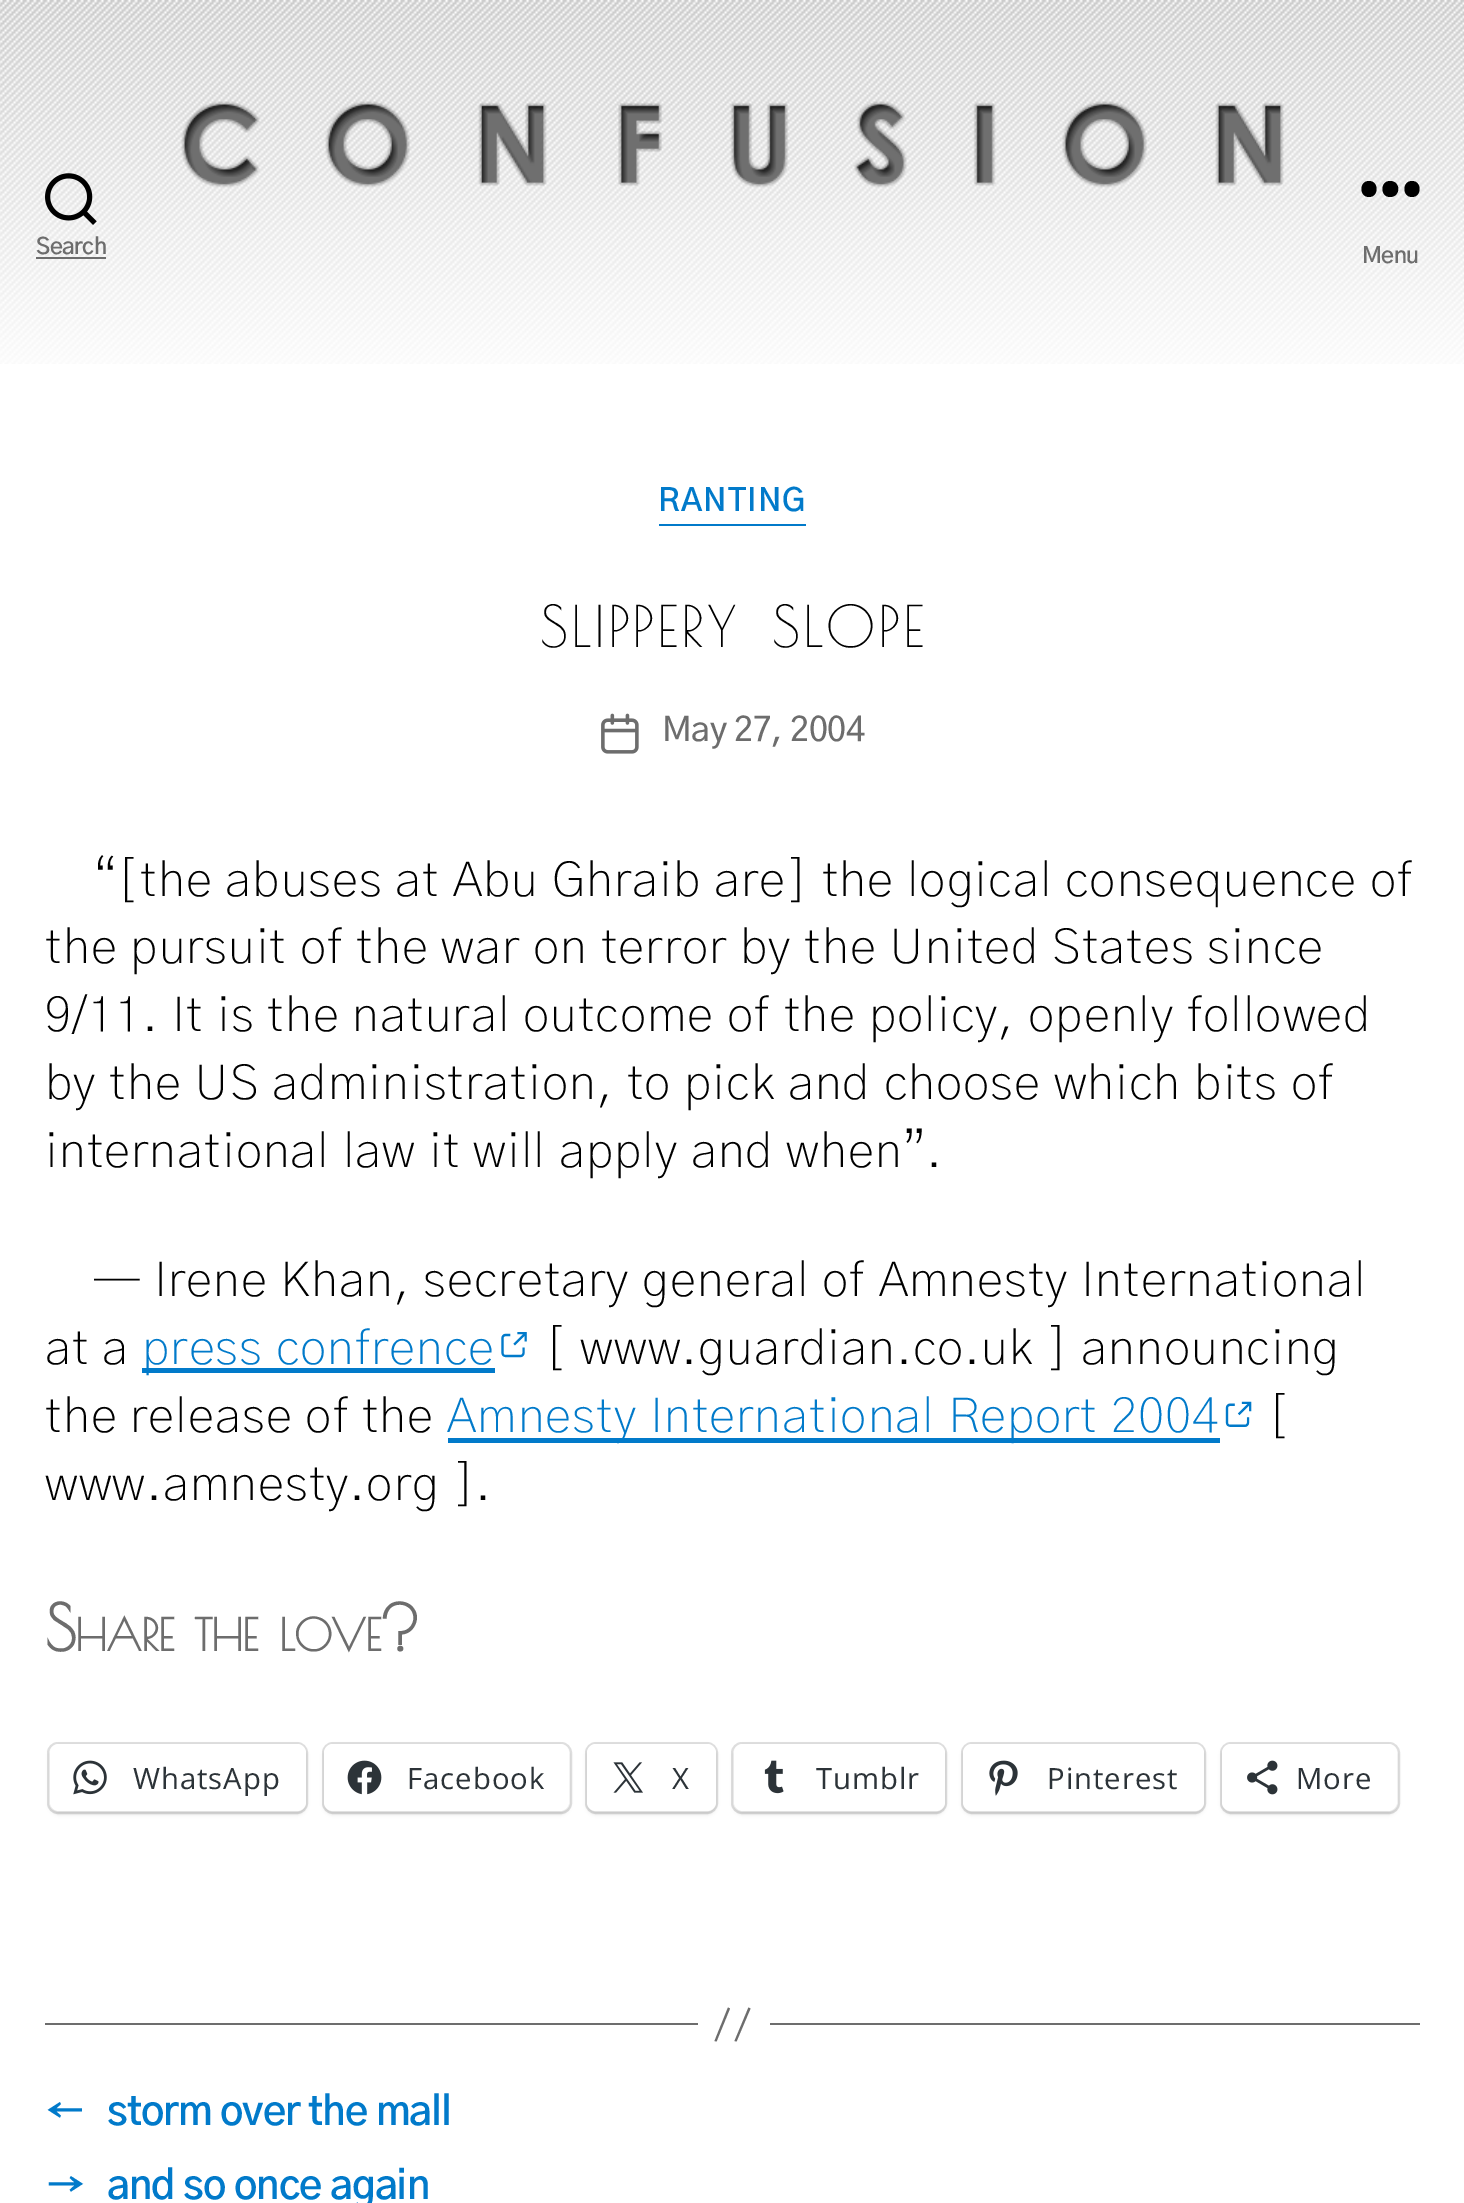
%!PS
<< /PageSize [1464 2203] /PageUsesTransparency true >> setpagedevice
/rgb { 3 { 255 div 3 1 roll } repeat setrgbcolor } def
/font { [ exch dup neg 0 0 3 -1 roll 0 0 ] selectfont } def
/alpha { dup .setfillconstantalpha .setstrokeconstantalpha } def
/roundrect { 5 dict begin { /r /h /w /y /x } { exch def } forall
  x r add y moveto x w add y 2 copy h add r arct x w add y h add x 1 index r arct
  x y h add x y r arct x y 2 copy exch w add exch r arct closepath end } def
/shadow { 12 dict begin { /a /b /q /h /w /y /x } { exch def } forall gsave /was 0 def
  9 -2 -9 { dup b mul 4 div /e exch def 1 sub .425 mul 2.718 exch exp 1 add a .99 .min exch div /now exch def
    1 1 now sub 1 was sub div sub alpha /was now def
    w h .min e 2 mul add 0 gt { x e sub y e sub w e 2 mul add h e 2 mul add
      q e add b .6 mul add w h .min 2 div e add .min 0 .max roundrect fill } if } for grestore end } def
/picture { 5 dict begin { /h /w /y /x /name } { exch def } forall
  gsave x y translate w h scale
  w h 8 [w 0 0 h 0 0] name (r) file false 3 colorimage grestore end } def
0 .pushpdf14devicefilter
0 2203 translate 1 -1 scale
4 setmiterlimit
255 255 255 rgb
0 0 1464 2203 rectfill
(img/1.rgb) 0 0 1464 364 picture
(img/2.rgb) 181 101 1103 87 picture
(img/3.rgb) 45 173 52 52 picture
109 109 109 rgb
36 257 70 2 rectfill
0 0 0 rgb
1369 197 moveto 1359 197 1359 181 1369 181 curveto 1379 181 1379 197 1369 197 curveto closepath 1390 197 moveto 1380 197 1380 181 1390 181 curveto 1401 181 1401 197 1390 197 curveto closepath 1412 197 moveto 1402 197 1402 181 1412 181 curveto 1422 181 1422 197 1412 197 curveto closepath eofill
1 122 202 rgb
659 524 147 2 rectfill
(img/4.rgb) 601 713 38 41 picture
142 1368 353 5 rectfill
(img/5.rgb) 501 1332 26 26 picture
448 1438 772 5 rectfill
(img/6.rgb) 1225 1401 27 26 picture
224 224 224 rgb
2 setlinewidth
48 1743 259 70 10 roundrect stroke
0 0 0 rgb
50 1746 256 68 9 2 0.12 shadow
255 255 255 rgb
50 1744 256 67 9 roundrect fill
(img/7.rgb) 73 1760 34 35 picture
224 224 224 rgb
323 1743 248 70 10 roundrect stroke
0 0 0 rgb
324 1746 245 68 9 2 0.12 shadow
255 255 255 rgb
324 1744 245 67 9 roundrect fill
(img/8.rgb) 347 1760 35 35 picture
224 224 224 rgb
586 1743 131 70 10 roundrect stroke
0 0 0 rgb
587 1746 129 68 9 2 0.12 shadow
255 255 255 rgb
587 1744 129 67 9 roundrect fill
(img/9.rgb) 613 1762 30 31 picture
224 224 224 rgb
732 1743 214 70 10 roundrect stroke
0 0 0 rgb
734 1746 211 68 9 2 0.12 shadow
255 255 255 rgb
734 1744 211 67 9 roundrect fill
(img/10.rgb) 764 1760 20 34 picture
224 224 224 rgb
962 1743 243 70 10 roundrect stroke
0 0 0 rgb
963 1746 241 68 9 2 0.12 shadow
255 255 255 rgb
963 1744 241 67 9 roundrect fill
(img/11.rgb) 989 1760 29 36 picture
224 224 224 rgb
1221 1743 178 70 10 roundrect stroke
0 0 0 rgb
1222 1746 175 68 9 2 0.12 shadow
255 255 255 rgb
1222 1744 175 67 9 roundrect fill
(img/12.rgb) 1247 1760 31 35 picture
109 109 109 rgb
770 2023 650 2 rectfill
45 2023 653 2 rectfill
728 2007.5 moveto 730 2008.5 lineto 716.5 2041.5 lineto 714.5 2041 lineto closepath 748.5 2007.5 moveto 750.5 2008.5 lineto 736.5 2041.5 lineto 734.5 2041 lineto closepath fill
/GothicA1-SemiBold 22.5 font
36 254 moveto -0.5 0 (Search) ashow
1362 263 moveto -0.5 0 (Menu) ashow
/GothicA1-SemiBold 31.5 font
1 122 202 rgb
658 511 moveto 1.25 0 (RANTING) ashow
/PoiretOne-Regular 56.5 font
0 0 0 rgb
540 647 moveto 2.75 0 (SLIPPERY) ashow
772 647 moveto 2.75 0 (SLOPE) ashow
/GothicA1-Medium 33.75 font
109 109 109 rgb
662 741 moveto -0.5 0 (May 27, 2004) ashow
/GothicA1-ExtraLight 48.6 font
0 0 0 rgb
94 896 moveto 0.97 0 (“[the abuses at Abu Ghraib are] the logical consequence of) ashow
45 963 moveto 0.97 0 (the pursuit of the war on terror by the United States since) ashow
45 1031 moveto 0.97 0 (9/11. It is the natural outcome of the policy, openly followed) ashow
45 1099 moveto 0.97 0 (by the US administration, to pick and choose which bits of) ashow
45 1167 moveto 0.97 0 (international law it will apply and when”.) ashow
94 1296 moveto 0.97 0 (— Irene Khan, secretary general of Amnesty International) ashow
45 1364 moveto 0.97 0 (at a) ashow
1 122 202 rgb
142 1364 moveto 0.97 0 (press confrence) ashow
0 0 0 rgb
545 1364 moveto 0.97 0 ([ www.guardian.co.uk ] announcing) ashow
45 1432 moveto 0.97 0 (the release of the) ashow
1 122 202 rgb
447 1432 moveto 0.97 0 (Amnesty International Report 2004) ashow
0 0 0 rgb
1268 1432 moveto 0.97 0 ([) ashow
45 1500 moveto 0.97 0 (www.amnesty.org ].) ashow
/PoiretOne-Bold 63 font
109 109 109 rgb
45 1651 moveto -1 0 (S) ashow
/PoiretOne-Bold 44 font
75 1651 moveto -1 0 (HARE) ashow
194 1651 moveto -1 0 (THE) ashow
279 1651 moveto -1 0 (LOVE) ashow
/PoiretOne-Bold 63 font
380 1651 moveto -1 0 (?) ashow
/OpenSans-Regular 29.25 font
44 51 56 rgb
133 1789 moveto 0.97 0 (WhatsApp) ashow
407 1789 moveto 0.97 0 (Facebook) ashow
672 1789 moveto 0.97 0 (X) ashow
816 1789 moveto 0.97 0 (Tumblr) ashow
1047 1789 moveto 0.97 0 (Pinterest) ashow
1296 1789 moveto 0.97 0 (More) ashow
/GothicA1-SemiBold 40.5 font
1 122 202 rgb
45 2125 moveto -1.1 0 (←) ashow
107 2125 moveto -1.1 0 (storm over the mall) ashow
45 2199 moveto -1.1 0 (→) ashow
107 2199 moveto -1.1 0 (and so once again) ashow
.poppdf14devicefilter showpage
